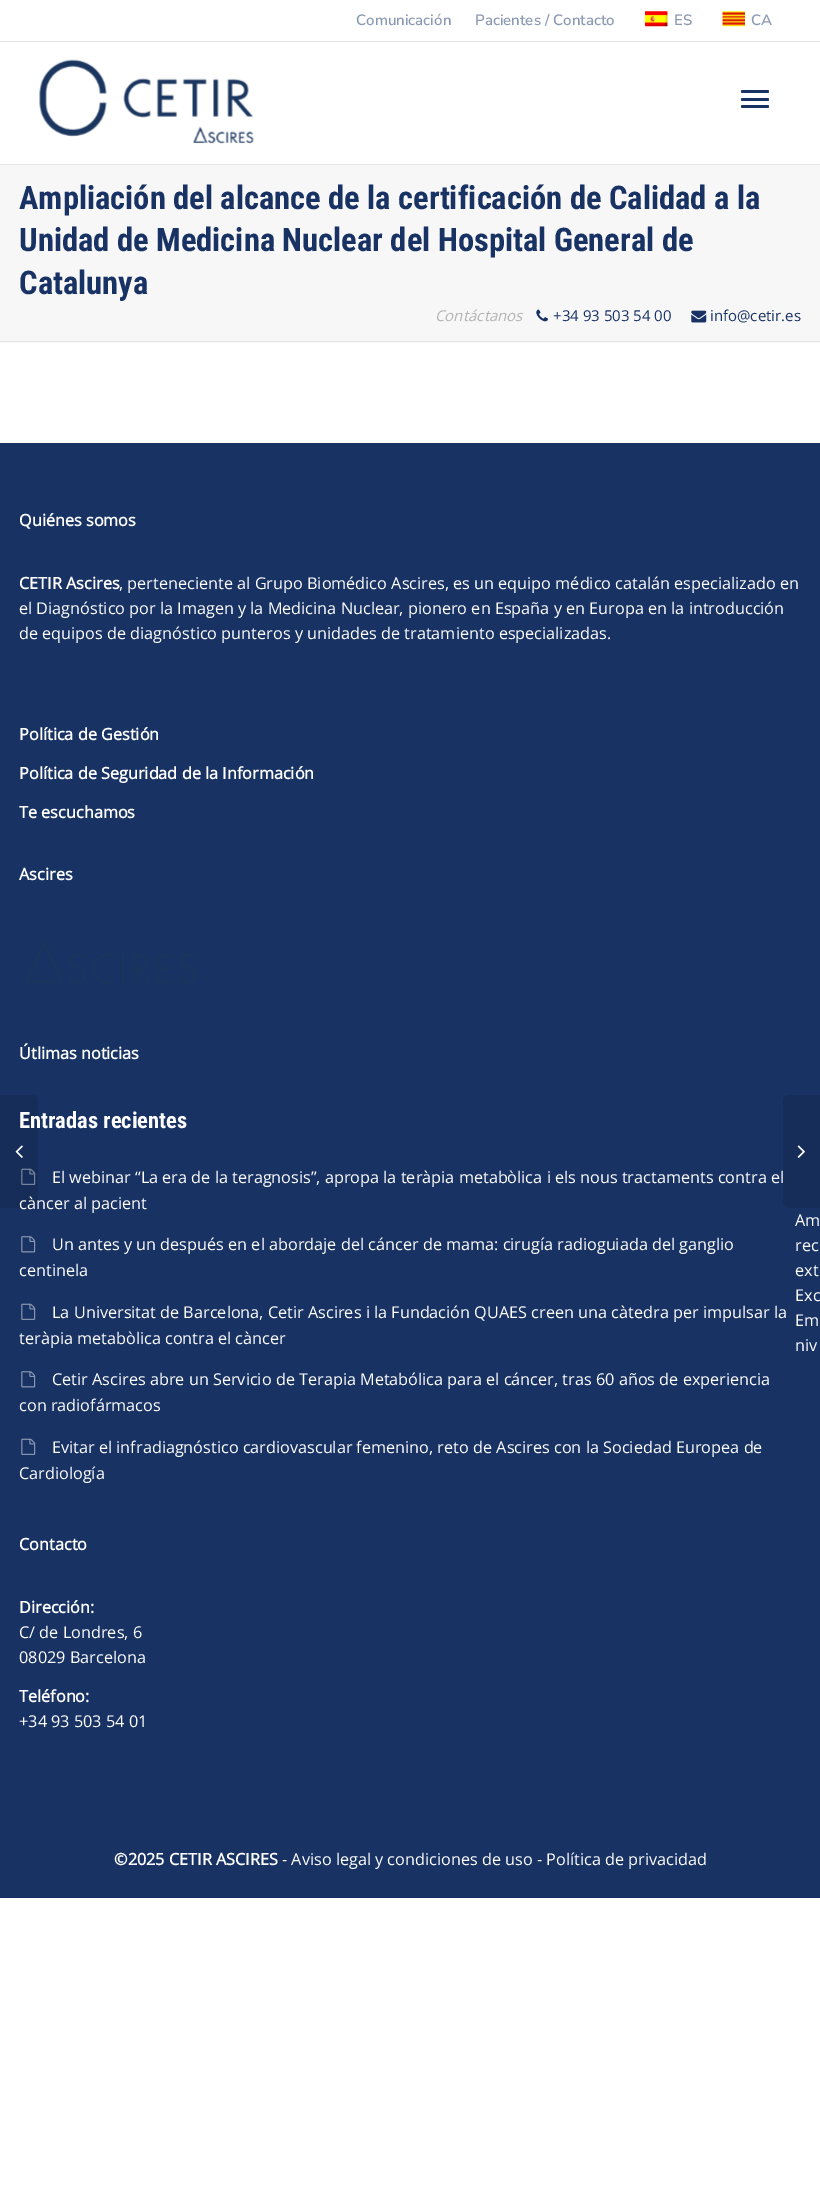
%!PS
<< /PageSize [820 2188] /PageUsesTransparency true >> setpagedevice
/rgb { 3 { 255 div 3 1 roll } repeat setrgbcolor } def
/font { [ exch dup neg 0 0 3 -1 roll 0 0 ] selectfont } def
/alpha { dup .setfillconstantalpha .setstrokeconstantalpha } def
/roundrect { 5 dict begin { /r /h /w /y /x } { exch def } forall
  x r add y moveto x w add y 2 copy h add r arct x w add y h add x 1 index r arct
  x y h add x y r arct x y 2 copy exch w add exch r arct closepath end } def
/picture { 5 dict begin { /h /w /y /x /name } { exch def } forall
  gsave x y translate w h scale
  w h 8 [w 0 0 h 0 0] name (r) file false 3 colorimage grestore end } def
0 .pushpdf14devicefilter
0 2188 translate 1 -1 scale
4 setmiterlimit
255 255 255 rgb
0 0 820 2188 rectfill
229 229 229 rgb
0 41 820 1 rectfill
(img/1.rgb) 645 11 23 16 picture
(img/2.rgb) 722 11 23 16 picture
0 164 820 1 rectfill
(img/3.rgb) 39 59 215 85 picture
24 50 100 rgb
741 90 28 3 1.5 roundrect fill
741 98 28 3 1.5 roundrect fill
741 105 28 3 1.5 roundrect fill
247 247 247 rgb
0 165 820 178 rectfill
229 229 229 rgb
0 341 820 1 rectfill
(img/4.rgb) 536 309 12 13 picture
(img/5.rgb) 691 310 16 13 picture
24 50 100 rgb
0 443 820 1455 rectfill
(img/9.rgb) 21 1168 15 17 picture
0.1 alpha
0 0 0 rgb
-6 1095 moveto 32 1095 lineto 35.5 1095 38 1097.5 38 1101 curveto 38 1202 lineto 38 1205.5 35.5 1208 32 1208 curveto -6 1208 lineto closepath fill
1 alpha
(img/6.rgb) 15 1145 8 13 picture
22 45 90 rgb
789 1095 moveto 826 1095 lineto 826 1208 lineto 789 1208 lineto 785.5 1208 783 1205.5 783 1202 curveto 783 1101 lineto 783 1097.5 785.5 1095 789 1095 curveto closepath fill
(img/7.rgb) 797 1145 8 13 picture
(img/8.rgb) 25 939 172 45 picture
(img/10.rgb) 21 1236 15 17 picture
(img/9.rgb) 21 1303 15 17 picture
(img/10.rgb) 21 1371 15 17 picture
(img/9.rgb) 21 1438 15 17 picture
/NunitoSans-ExtraLight 15 font
140 153 178 rgb
[
  [(Comunicación) 356 25]
  [(Pacientes / Contacto) 475 25]
  [(ES) 674 25]
  [(CA) 751 25]
] { aload pop moveto show } forall
/RobotoCondensed-Bold 32.5 font
24 50 100 rgb
[
  [(Ampliación del alcance de la certificación de Calidad a la) 19 209]
  [(Unidad de Medicina Nuclear del Hospital General de) 19 251]
  [(Catalunya) 19 294]
] { aload pop moveto show } forall
/OpenSans-Italic 15 font
179 179 179 rgb
435 321 moveto (Contáctanos) show
/OpenSans-Regular 15 font
24 50 100 rgb
553 321 moveto (+34 93 503 54 00) show
710 321 moveto (info@cetir.es) show
/OpenSans-Regular 16.25 font
255 255 255 rgb
[
  [(Am) 795 1226]
  [(rec) 795 1251]
  [(ext) 795 1276]
  [(Exc) 795 1301]
  [(Em) 795 1326]
  [(niv) 795 1351]
] { aload pop moveto show } forall
/OpenSans-Bold 16.25 font
19 526 moveto (Quiénes somos) show
19 589 moveto (CETIR Ascires) show
/OpenSans-Regular 16.25 font
[
  [(, perteneciente al Grupo Biomédico Ascires, es un equipo médico catalán especializado en) 119 589]
  [(el Diagnóstico por la Imagen y la Medicina Nuclear, pionero en España y en Europa en la introducción) 19 614]
  [(de equipos de diagnóstico punteros y unidades de tratamiento especializadas.) 19 639]
] { aload pop moveto show } forall
/OpenSans-Bold 16.25 font
[
  [(Política de Gestión) 19 740]
  [(Política de Seguridad de la Información) 19 779]
  [(Te escuchamos) 19 818]
  [(Ascires) 19 880]
  [(Útlimas noticias) 19 1059]
] { aload pop moveto show } forall
/RobotoCondensed-Bold 22.5 font
19 1128 moveto (Entradas recientes) show
/OpenSans-Regular 16.25 font
[
  [(El webinar “La era de la teragnosis”, apropa la teràpia metabòlica i els nous tractaments contra el) 52 1183]
  [(càncer al pacient) 19 1209]
  [(Un antes y un después en el abordaje del cáncer de mama: cirugía radioguiada del ganglio) 52 1250]
  [(centinela) 19 1276]
  [(La Universitat de Barcelona, Cetir Ascires i la Fundación QUAES creen una càtedra per impulsar la) 52 1318]
  [(teràpia metabòlica contra el càncer) 19 1344]
  [(Cetir Ascires abre un Servicio de Terapia Metabólica para el cáncer, tras 60 años de experiencia) 52 1385]
  [(con radiofármacos) 19 1411]
  [(Evitar el infradiagnóstico cardiovascular femenino, reto de Ascires con la Sociedad Europea de) 52 1453]
  [(Cardiología) 19 1479]
] { aload pop moveto show } forall
/OpenSans-Bold 16.25 font
19 1550 moveto (Contacto) show
19 1613 moveto (Dirección:) show
/OpenSans-Regular 16.25 font
19 1638 moveto (C/ de Londres, 6) show
19 1663 moveto (08029 Barcelona) show
/OpenSans-Bold 16.25 font
19 1702 moveto (Teléfono:) show
/OpenSans-Regular 16.25 font
19 1727 moveto (+34 93 503 54 01) show
/OpenSans-Bold 16.25 font
114 1865 moveto (©2025 CETIR ASCIRES) show
/OpenSans-Regular 16.25 font
282 1865 moveto (- Aviso legal y condiciones de uso - Política de privacidad) show
.poppdf14devicefilter showpage
